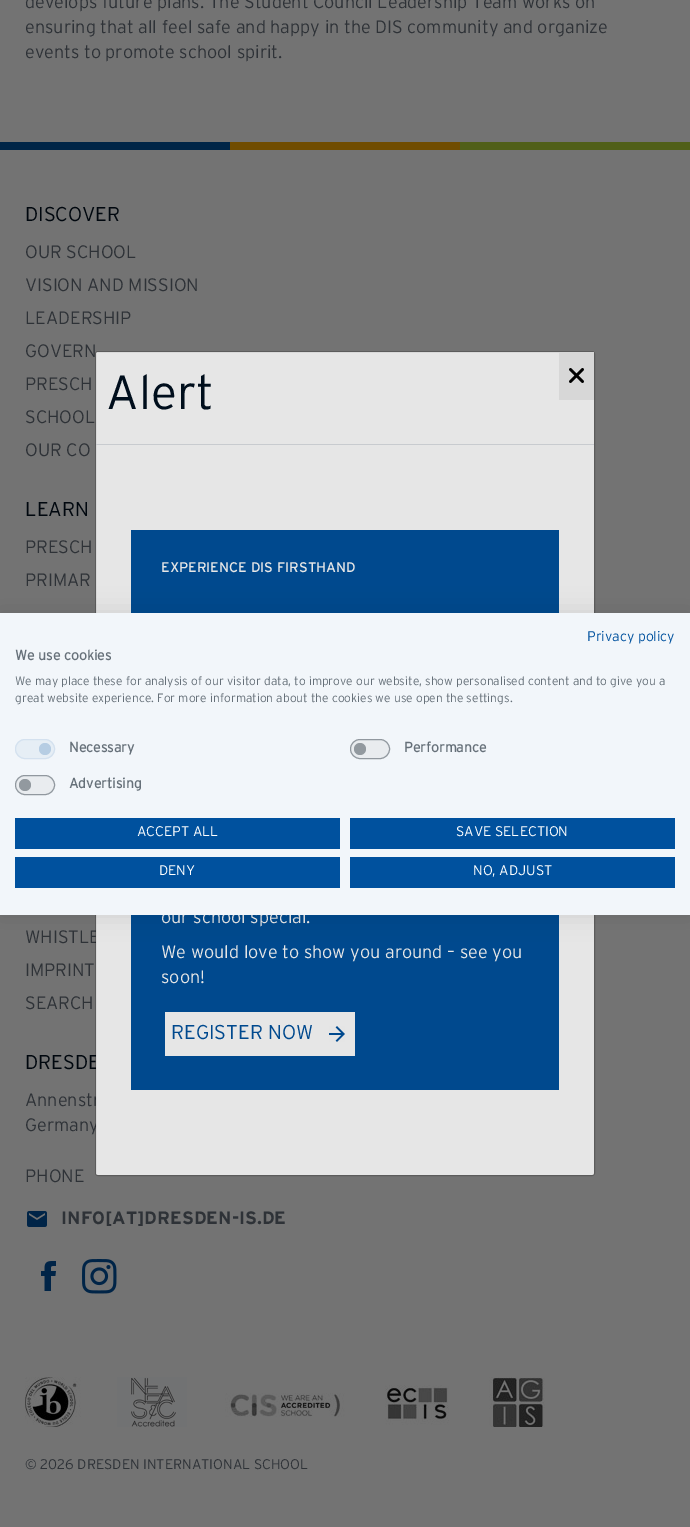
%!PS
<< /PageSize [690 1527] /PageUsesTransparency true >> setpagedevice
/rgb { 3 { 255 div 3 1 roll } repeat setrgbcolor } def
/font { [ exch dup neg 0 0 3 -1 roll 0 0 ] selectfont } def
/alpha { dup .setfillconstantalpha .setstrokeconstantalpha } def
/circle { newpath 0 360 arc closepath } def
/roundrect { 5 dict begin { /r /h /w /y /x } { exch def } forall
  x r add y moveto x w add y 2 copy h add r arct x w add y h add x 1 index r arct
  x y h add x y r arct x y 2 copy exch w add exch r arct closepath end } def
/shadow { 12 dict begin { /a /b /q /h /w /y /x } { exch def } forall gsave /was 0 def
  9 -2 -9 { dup b mul 4 div /e exch def 1 sub .425 mul 2.718 exch exp 1 add a .99 .min exch div /now exch def
    1 1 now sub 1 was sub div sub alpha /was now def
    w h .min e 2 mul add 0 gt { x e sub y e sub w e 2 mul add h e 2 mul add
      q e add b .6 mul add w h .min 2 div e add .min 0 .max roundrect fill } if } for grestore end } def
/picture { 5 dict begin { /h /w /y /x /name } { exch def } forall
  gsave x y translate w h scale
  w h 8 [w 0 0 h 0 0] name (r) file false 3 colorimage grestore end } def
0 .pushpdf14devicefilter
0 1527 translate 1 -1 scale
4 setmiterlimit
115 115 115 rgb
0 0 690 1527 rectfill
[
  [0 142 230 8 0 37 71]
  [230 142 230 8 112 76 0]
  [460 142 230 8 80 95 24]
] { aload pop rgb rectfill } forall
(img/1.rgb) 27 1211 20 16 picture
(img/2.rgb) 41 1261 15 30 picture
(img/3.rgb) 82 1259 35 35 picture
(img/4.rgb) 25 1377 520 50 picture
/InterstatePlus-Light 18 font
46 50 55 rgb
[
  [(develops future plans. The Student Council Leadership Team works on) 25 8]
  [(ensuring that all feel safe and happy in the DIS community and organize) 25 33]
  [(events to promote school spirit.) 25 58]
] { aload pop moveto show } forall
/InterstatePlus-Light 20 font
0 7 14 rgb
25 221 moveto (DISCOVER) show
/InterstatePlus-Light 18 font
46 50 55 rgb
[
  [(OUR SCHOOL) 25 258]
  [(VISION AND MISSION) 25 291]
  [(LEADERSHIP) 25 324]
  [(GOVERN) 25 357]
  [(PRESCH) 25 390]
  [(SCHOOL) 25 423]
  [(OUR CO) 25 456]
] { aload pop moveto show } forall
/InterstatePlus-Light 20 font
0 7 14 rgb
25 516 moveto (LEARN) show
/InterstatePlus-Light 18 font
46 50 55 rgb
[
  [(PRESCH) 25 553]
  [(PRIMAR) 25 586]
  [(WHISTLE) 25 943]
  [(IMPRINT) 25 976]
  [(SEARCH) 25 1009]
] { aload pop moveto show } forall
/InterstatePlus-Light 20 font
0 7 14 rgb
25 1069 moveto (DRESDE) show
/InterstatePlus-Light 18 font
46 50 55 rgb
[
  [(Annenstr) 25 1106]
  [(Germany) 25 1131]
  [(PHONE) 25 1182]
] { aload pop moveto show } forall
/InterstatePlus-Bold 18 font
61 1224 moveto (INFO[AT]DRESDEN-IS.DE) show
/InterstatePlus-Light 14 font
25 1469 moveto (© 2026 DRESDEN INTERNATIONAL SCHOOL) show
230 230 230 rgb
96 352 498 823 2 roundrect fill
0.2 alpha
0 0 0 rgb
95.5 351.5 499 824 2.5 roundrect stroke
1 alpha
200 203 207 rgb
96 444 498 1 rectfill
/InterstatePlus-Light 48 font
0 14 28 rgb
106 409 moveto (Alert) show
215 215 215 rgb
559 352 35 48 rectfill
(img/5.rgb) 569 368 15 15 picture
0 73 142 rgb
131 530 428 560 rectfill
/InterstatePlus-Regular 14 font
230 230 230 rgb
161 572 moveto (EXPERIENCE DIS FIRSTHAND) show
/InterstatePlus-Light 18 font
[
  [(our school special.) 161 923]
  [(We would love to show you around – see you) 161 958]
  [(soon!) 161 983]
] { aload pop moveto show } forall
165 1012 190 44 rectfill
/InterstatePlus-Light 20 font
0 73 142 rgb
171 1039 moveto (REGISTER NOW) show
(img/6.rgb) 329 1026 16 16 picture
0 0 0 rgb
0 613 690 302 0 12 0.1 shadow
242 246 250 rgb
0 613 690 302 rectfill
/InterstatePlus-Light 14 font
0 81 158 rgb
587 641 moveto (Privacy policy) show
/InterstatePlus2-Bold 14 font
102 112 121 rgb
15 660 moveto (We use cookies) show
/InterstatePlus-Light 12 font
15 685 moveto (We may place these for analysis of our visitor data, to improve our website, show personalised content and to give you a) show
15 702 moveto (great website experience. For more information about the cookies we use open the settings.) show
230 238 245 rgb
15 739 40 20 10 roundrect fill
182 205 227 rgb
45 749 6 circle fill
212 225 239 rgb
15.5 739.5 39 19 9.5 roundrect stroke
/InterstatePlus2-Bold 14 font
102 112 121 rgb
69 752 moveto (Necessary) show
233 236 239 rgb
350 739 40 20 10 roundrect fill
146 153 159 rgb
360 749 6 circle fill
0.7 alpha
108 117 125 rgb
350.5 739.5 39 19 9.5 roundrect stroke
1 alpha
102 112 121 rgb
404 752 moveto (Performance) show
233 236 239 rgb
15 775 40 20 10 roundrect fill
146 153 159 rgb
25 785 6 circle fill
0.7 alpha
108 117 125 rgb
15.5 775.5 39 19 9.5 roundrect stroke
1 alpha
102 112 121 rgb
69 788 moveto (Advertising) show
0 81 158 rgb
15 818 325 31 rectfill
/InterstatePlus-Light 14 font
255 255 255 rgb
137 836 moveto (ACCEPT ALL) show
0 81 158 rgb
350 818 325 31 rectfill
255 255 255 rgb
456 836 moveto (SAVE SELECTION) show
0 81 158 rgb
15 857 325 31 rectfill
255 255 255 rgb
159 875 moveto (DENY) show
0 81 158 rgb
350 857 325 31 rectfill
255 255 255 rgb
473 875 moveto (NO, ADJUST) show
.poppdf14devicefilter showpage
